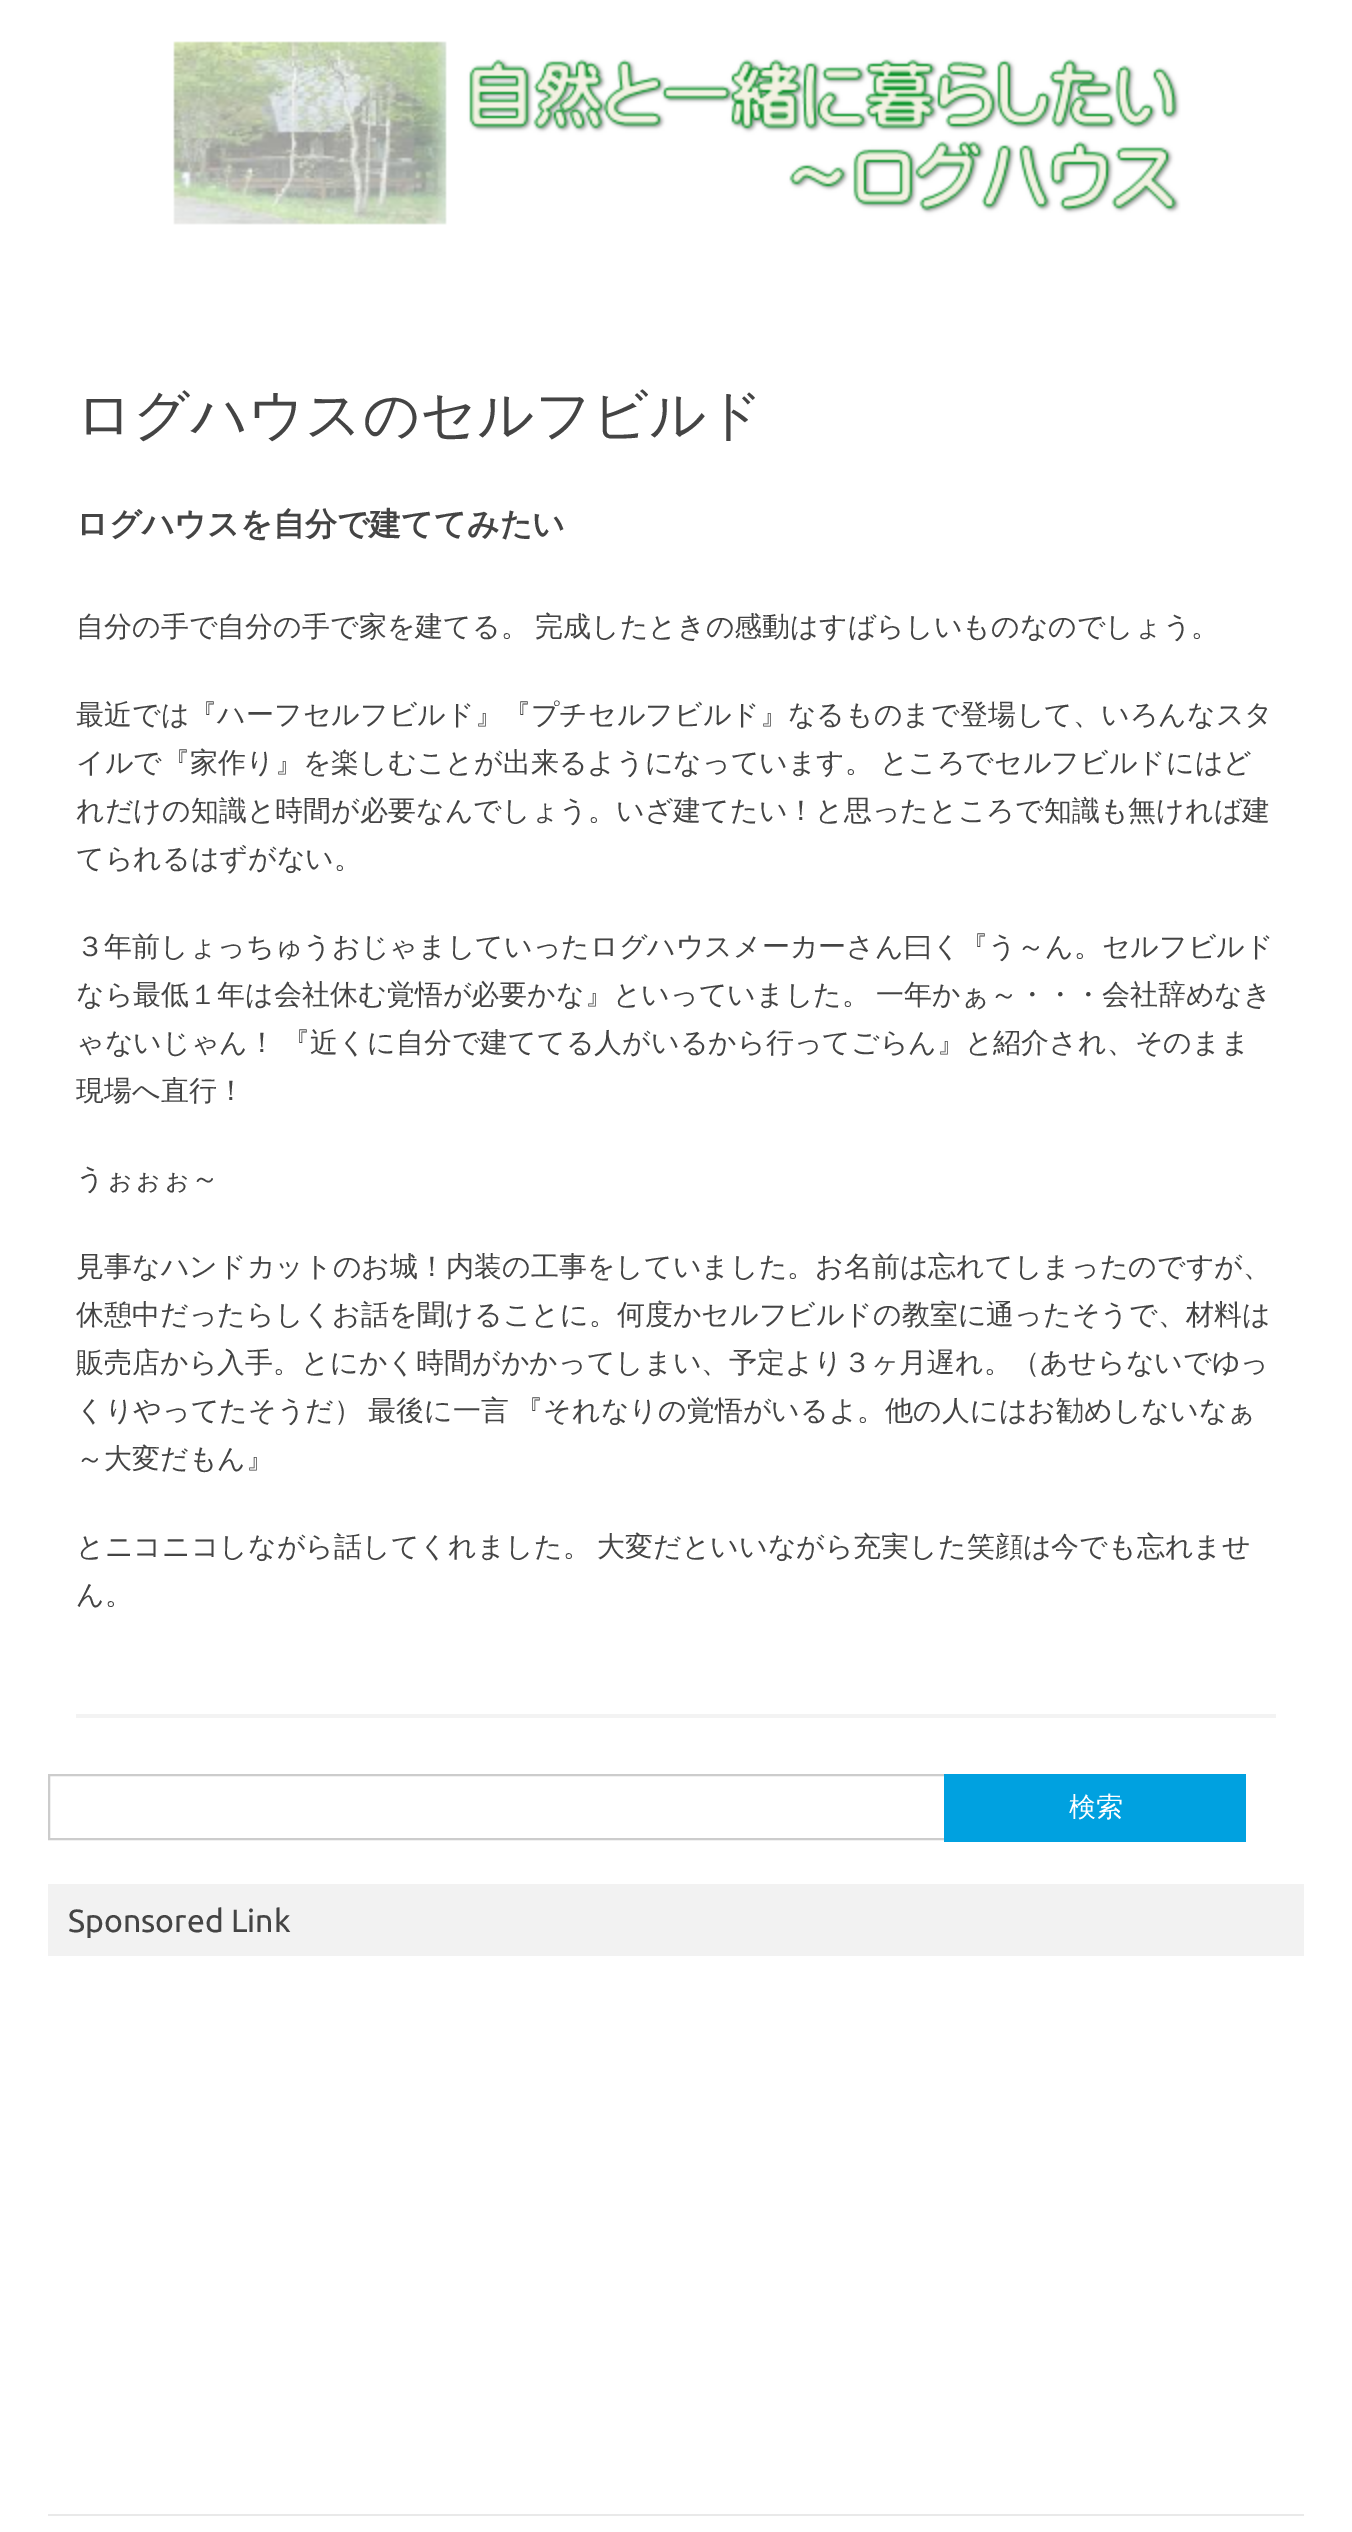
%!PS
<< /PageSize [1352 2532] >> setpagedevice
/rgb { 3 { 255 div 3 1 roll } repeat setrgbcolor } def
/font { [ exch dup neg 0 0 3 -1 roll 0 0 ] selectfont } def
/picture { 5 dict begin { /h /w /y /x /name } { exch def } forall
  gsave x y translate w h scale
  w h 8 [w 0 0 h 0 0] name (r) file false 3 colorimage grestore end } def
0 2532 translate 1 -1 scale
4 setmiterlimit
255 255 255 rgb
0 0 1352 2532 rectfill
(img/1.rgb) 173 41 1008 184 picture
243 243 243 rgb
76 1714 1200 4 rectfill
204 204 204 rgb
2 setlinewidth
49 1775 896 64 rectstroke
[
  [944 1774 302 68 0 161 224]
  [48 1884 1256 72 242 242 242]
  [48 2514 1256 2 233 233 233]
] { aload pop rgb rectfill } forall
/WenQuanYiZenHei-Medium 56 font
68 68 68 rgb
76 434 moveto (ログハウスのセルフビルド) show
/WenQuanYiZenHei-Bold 32 font
76 535 moveto (ログハウスを自分で建ててみたい) show
/WenQuanYiZenHei-Medium 28 font
76 636 moveto -2 0 32 (自分の手で自分の手で家を建てる。 完成したときの感動はすばらしいものなのでしょう。) widthshow
76 724 moveto (最近では『ハーフセルフビルド』『プチセルフビルド』なるものまで登場して、いろんなスタ) show
76 772 moveto -2 0 32 (イルで『家作り』を楽しむことが出来るようになっています。 ところでセルフビルドにはど) widthshow
[
  [(れだけの知識と時間が必要なんでしょう。いざ建てたい！と思ったところで知識も無ければ建) 76 820]
  [(てられるはずがない。) 76 868]
  [(３年前しょっちゅうおじゃましていったログハウスメーカーさん曰く『う～ん。セルフビルド) 76 956]
] { aload pop moveto show } forall
76 1004 moveto -2 0 32 (なら最低１年は会社休む覚悟が必要かな』といっていました。 一年かぁ～・・・会社辞めなき) widthshow
76 1052 moveto -2 0 32 (ゃないじゃん！ 『近くに自分で建ててる人がいるから行ってごらん』と紹介され、そのまま) widthshow
[
  [(現場へ直行！) 76 1100]
  [(うぉぉぉ～) 76 1188]
  [(見事なハンドカットのお城！内装の工事をしていました。お名前は忘れてしまったのですが、) 76 1276]
  [(休憩中だったらしくお話を聞けることに。何度かセルフビルドの教室に通ったそうで、材料は) 76 1324]
  [(販売店から入手。とにかく時間がかかってしまい、予定より３ヶ月遅れ。（あせらないでゆっ) 76 1372]
] { aload pop moveto show } forall
76 1420 moveto -2 0 32 (くりやってたそうだ） 最後に一言 『それなりの覚悟がいるよ。他の人にはお勧めしないなぁ) widthshow
76 1468 moveto (～大変だもん』) show
76 1556 moveto -2 0 32 (とニコニコしながら話してくれました。 大変だといいながら充実した笑顔は今でも忘れませ) widthshow
76 1604 moveto (ん。) show
/WenQuanYiZenHei-Medium 27 font
255 255 255 rgb
1069 1816 moveto (検索) show
/Ubuntu-Regular 32 font
68 68 68 rgb
68 1932 moveto (Sponsored Link) show
showpage
